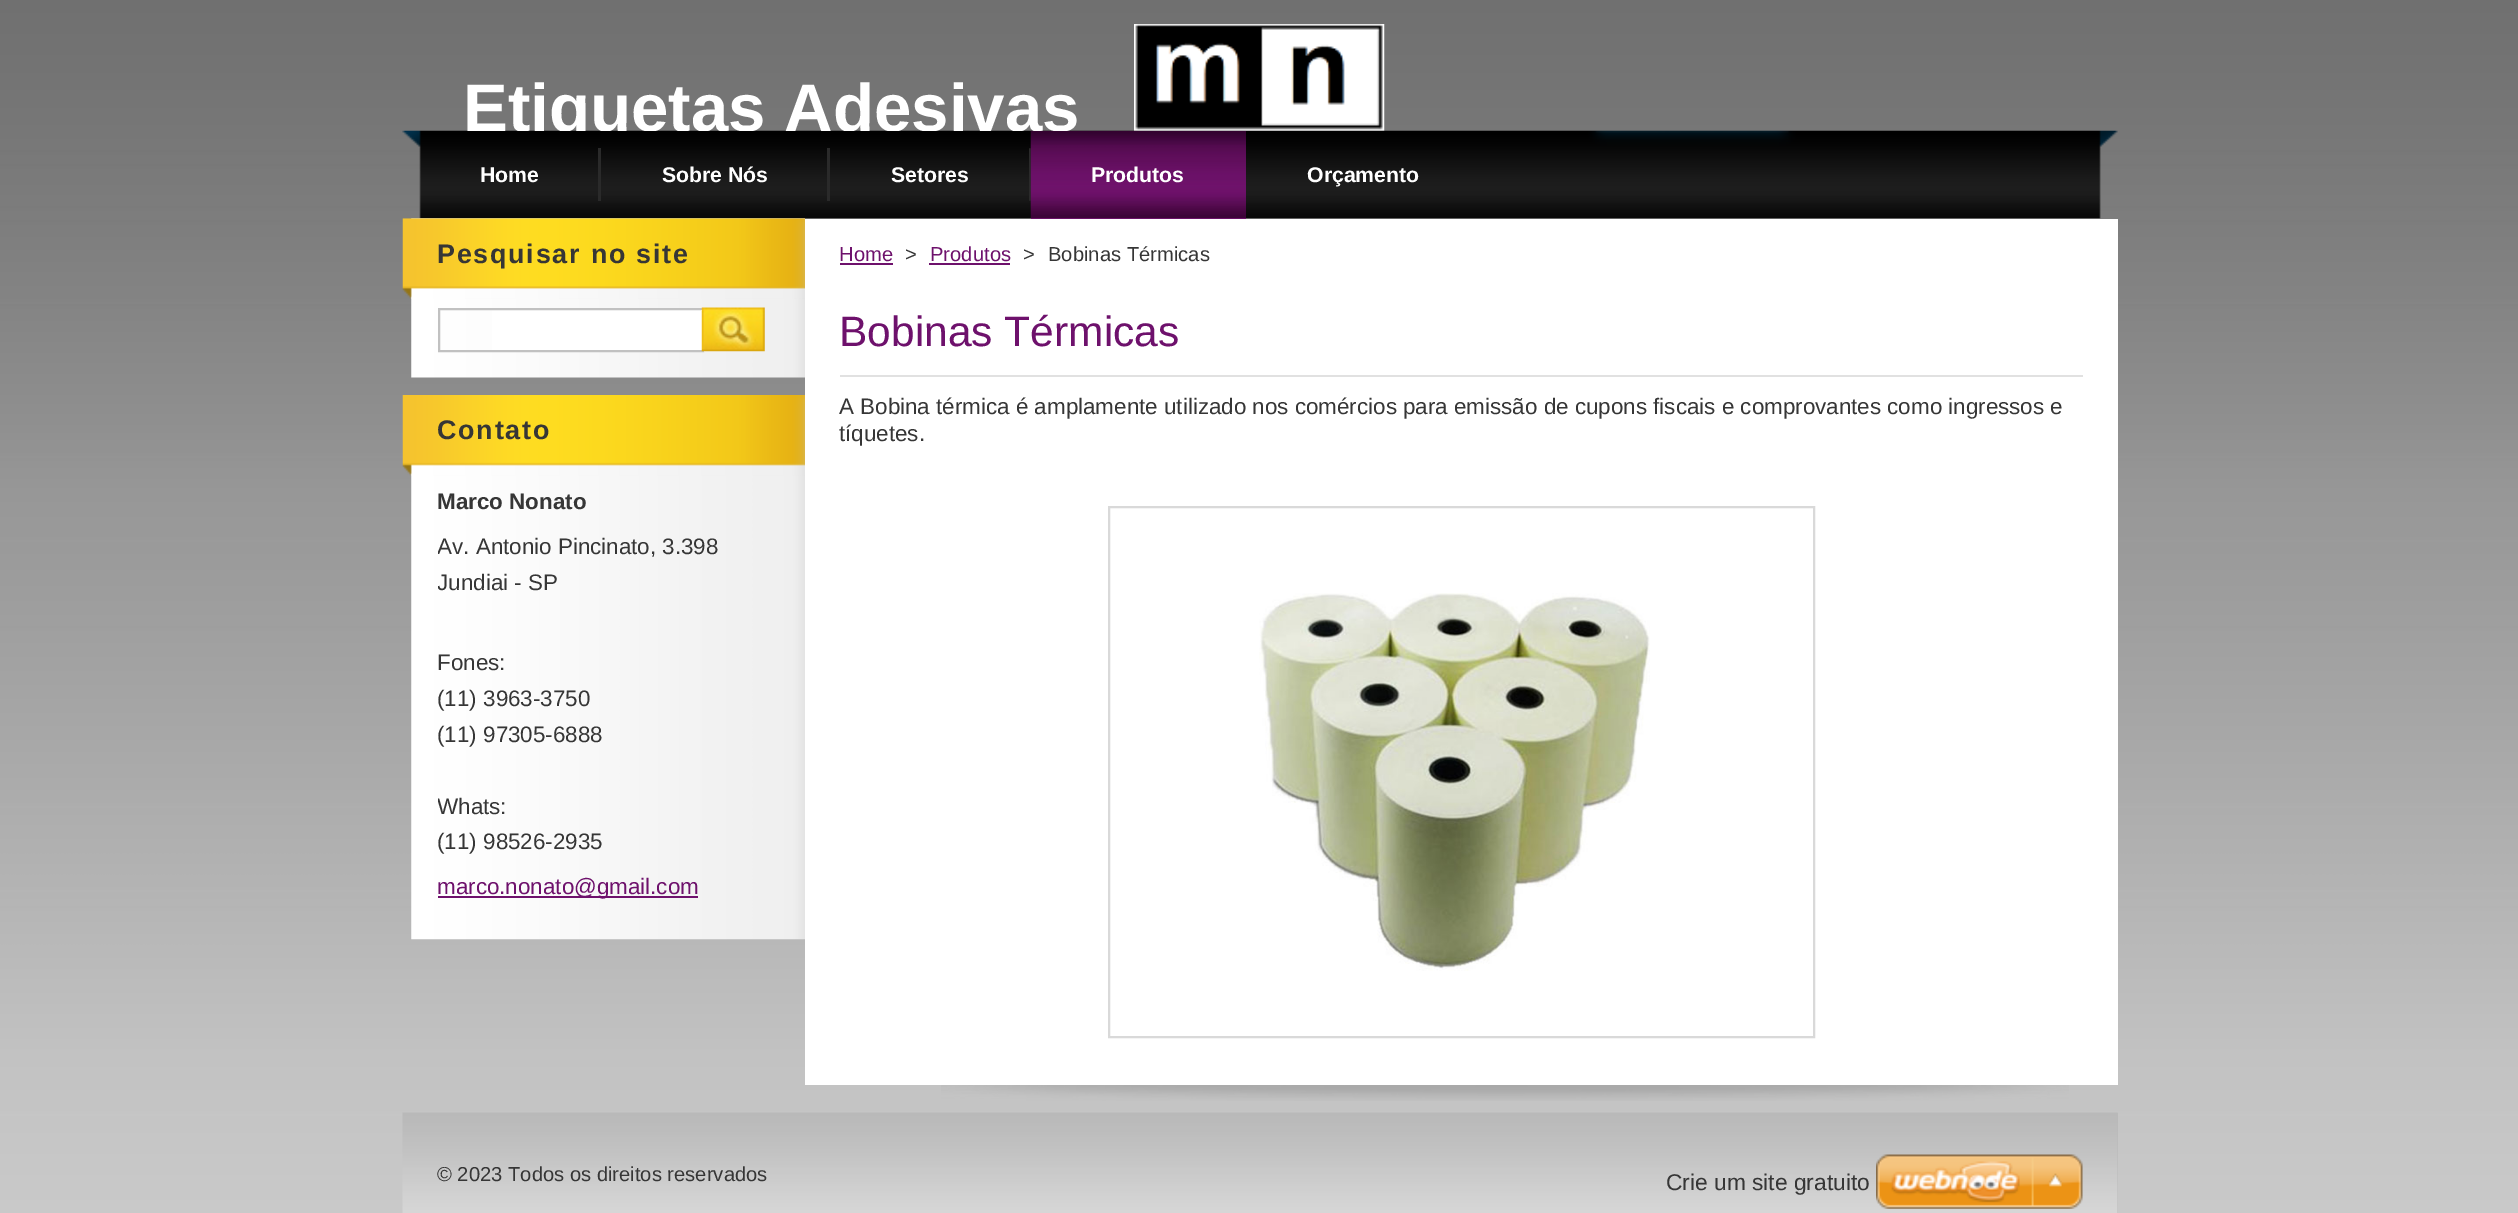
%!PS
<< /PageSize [2518 1213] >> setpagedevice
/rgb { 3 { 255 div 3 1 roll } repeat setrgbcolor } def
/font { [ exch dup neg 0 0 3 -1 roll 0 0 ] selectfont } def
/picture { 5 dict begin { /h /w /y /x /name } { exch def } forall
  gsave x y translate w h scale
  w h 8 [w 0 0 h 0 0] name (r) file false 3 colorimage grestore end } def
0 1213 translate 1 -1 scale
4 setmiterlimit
255 255 255 rgb
0 0 2518 1213 rectfill
(img/1.rgb) 0 0 2518 1213 picture
(img/3.rgb) 402 130 1716 89 picture
(img/4.rgb) 1029 148 2 53 picture
(img/5.rgb) 1030 130 216 88 picture
(img/2.rgb) 1134 24 251 107 picture
[
  [598 148 3 53 42 42 42]
  [827 148 3 53 42 42 42]
  [1031 218 215 1 106 17 103]
] { aload pop rgb rectfill } forall
(img/6.rgb) 411 218 394 160 picture
(img/7.rgb) 402 218 403 81 picture
255 255 255 rgb
492 310 210 40 rectfill
193 193 193 rgb
2 setlinewidth
439 309 264 42 rectstroke
(img/8.rgb) 701 307 64 45 picture
(img/9.rgb) 411 464 394 476 picture
(img/10.rgb) 402 395 403 81 picture
110 17 108 rgb
438 896 260 2 rectfill
(img/11.rgb) 941 1085 1128 16 picture
[
  [805 219 1313 866 255 255 255]
  [840 263 53 2 110 17 108]
  [929 263 81 2 110 17 108]
  [840 375 1243 2 225 225 225]
] { aload pop rgb rectfill } forall
217 217 217 rgb
1109 507 705 530 rectstroke
(img/12.rgb) 1259 593 391 378 picture
185 185 185 rgb
2117 1113 1 100 rectfill
(img/13.rgb) 402 1112 1716 101 picture
(img/14.rgb) 1876 1154 207 55 picture
gsave
464 68 1050 63 rectclip
/LiberationSans-Bold 67.25 font
255 255 255 rgb
463 131 moveto (Etiquetas Adesivas) show
grestore
/LiberationSans-Bold 21.25 font
255 255 255 rgb
[
  [(Home) 480 182]
  [(Sobre Nós) 662 182]
  [(Setores) 891 182]
  [(Produtos) 1091 182]
  [(Orçamento) 1307 182]
] { aload pop moveto show } forall
/LiberationSans-Bold 26.9 font
54 54 54 rgb
437 263 moveto 1.75 0 (Pesquisar no site) ashow
437 439 moveto 1.75 0 (Contato) ashow
/LiberationSans-Bold 22.4 font
437 509 moveto (Marco Nonato) show
gsave
438 476 332 464 rectclip
/LiberationSans-Regular 22.4 font
437 554 moveto (Av. Antonio Pincinato, 3.398) show
437 590 moveto (Jundiai - SP) show
grestore
/LiberationSans-Regular 22.4 font
[
  [(Fones:) 437 670]
  [(\(11\) 3963-3750) 437 706]
  [(\(11\) 97305-6888) 437 742]
] { aload pop moveto show } forall
gsave
438 476 332 464 rectclip
437 814 moveto (Whats:) show
grestore
437 849 moveto (\(11\) 98526-2935) show
110 17 108 rgb
437 894 moveto (marco.nonato@gmail.com) show
/LiberationSans-Regular 20.2 font
839 261 moveto (Home) show
54 54 54 rgb
905 261 moveto (>) show
110 17 108 rgb
930 261 moveto (Produtos) show
54 54 54 rgb
1023 261 moveto (>) show
1048 261 moveto (Bobinas Térmicas) show
/LiberationSans-Regular 42.5 font
110 17 108 rgb
839 346 moveto (Bobinas Térmicas) show
/LiberationSans-Regular 22.4 font
54 54 54 rgb
839 414 moveto (A Bobina térmica é amplamente utilizado nos comércios para emissão de cupons fiscais e comprovantes como ingressos e) show
839 441 moveto (tíquetes.) show
/LiberationSans-Regular 20.2 font
437 1181 moveto (© 2023 Todos os direitos reservados) show
/LiberationSans-Regular 22.75 font
1666 1190 moveto (Crie um site gratuito) show
showpage
